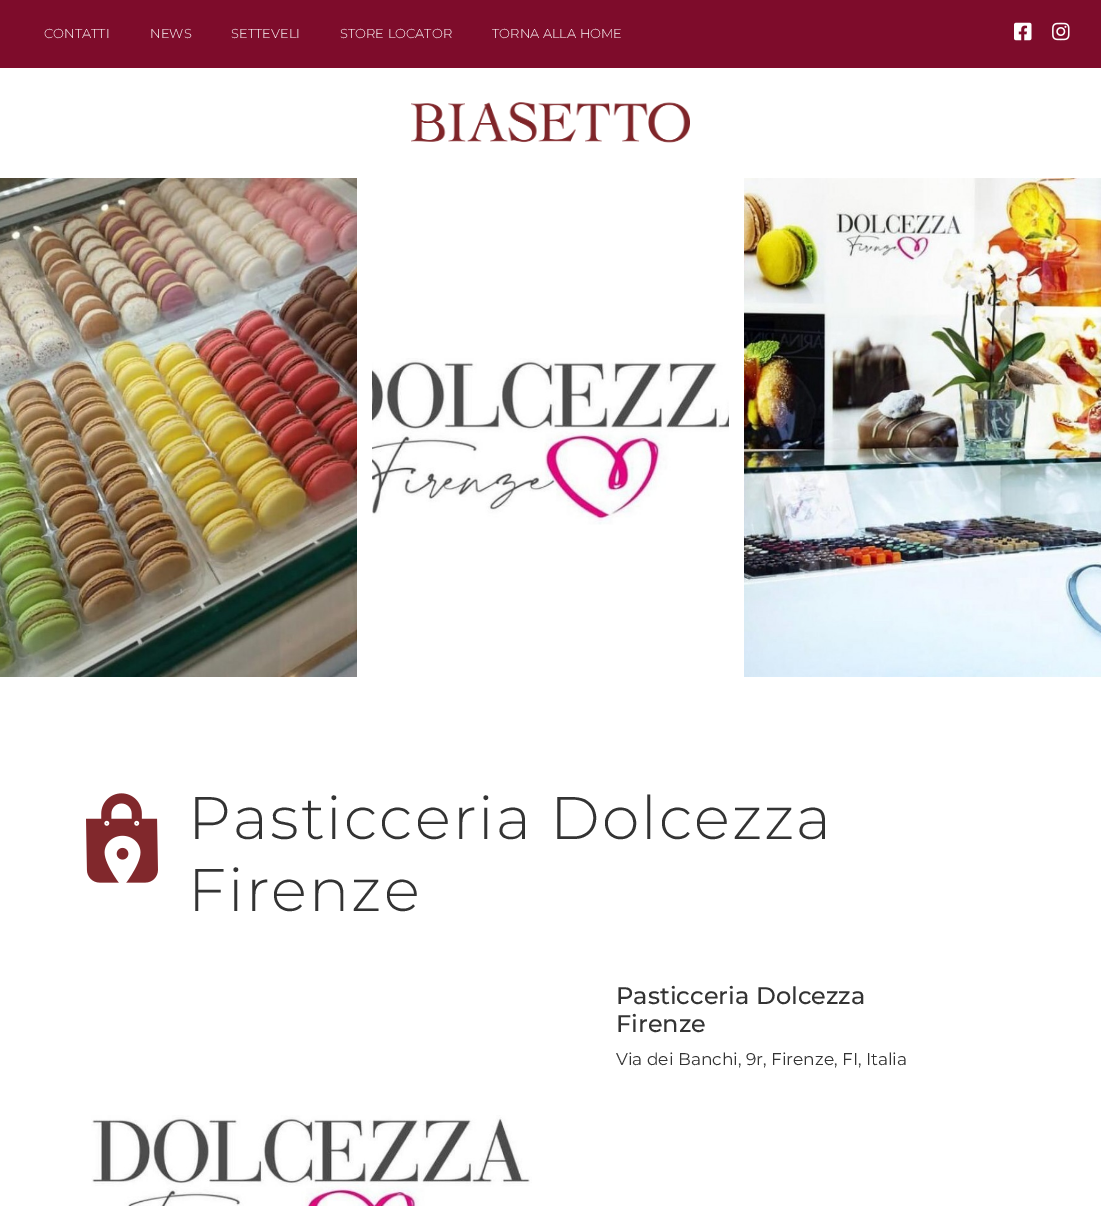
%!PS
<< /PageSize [1101 1206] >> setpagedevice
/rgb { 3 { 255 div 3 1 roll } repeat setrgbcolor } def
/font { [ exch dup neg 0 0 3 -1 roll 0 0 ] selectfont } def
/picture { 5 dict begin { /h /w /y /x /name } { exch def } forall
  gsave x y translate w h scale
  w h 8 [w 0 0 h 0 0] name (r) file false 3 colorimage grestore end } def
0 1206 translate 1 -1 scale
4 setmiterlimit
255 255 255 rgb
0 0 1101 1206 rectfill
126 12 43 rgb
0 0 1101 68 rectfill
(img/1.rgb) 1014 22 18 19 picture
(img/2.rgb) 1052 22 18 19 picture
(img/3.rgb) 411 102 279 41 picture
(img/4.rgb) 0 178 357 499 picture
(img/5.rgb) 372 358 357 167 picture
(img/6.rgb) 744 178 357 499 picture
(img/7.rgb) 86 793 72 90 picture
(img/8.rgb) 91 1115 441 91 picture
/Montserrat-Light 13 font
255 255 255 rgb
[
  [(CONTATTI) 44 38]
  [(NEWS) 150 38]
  [(SETTEVELI) 231 38]
  [(STORE LOCATOR) 340 38]
  [(TORNA ALLA HOME) 492 38]
] { aload pop moveto show } forall
/Montserrat-Light 60 font
51 51 51 rgb
188 839 moveto 2 0 (Pasticceria Dolcezza) ashow
188 911 moveto 2 0 (Firenze) ashow
/Montserrat-Medium 24 font
616 1004 moveto (Pasticceria Dolcezza) show
616 1032 moveto (Firenze) show
/Montserrat-Regular 17 font
616 1065 moveto (Via dei Banchi, 9r, Firenze, FI, Italia) show
showpage
